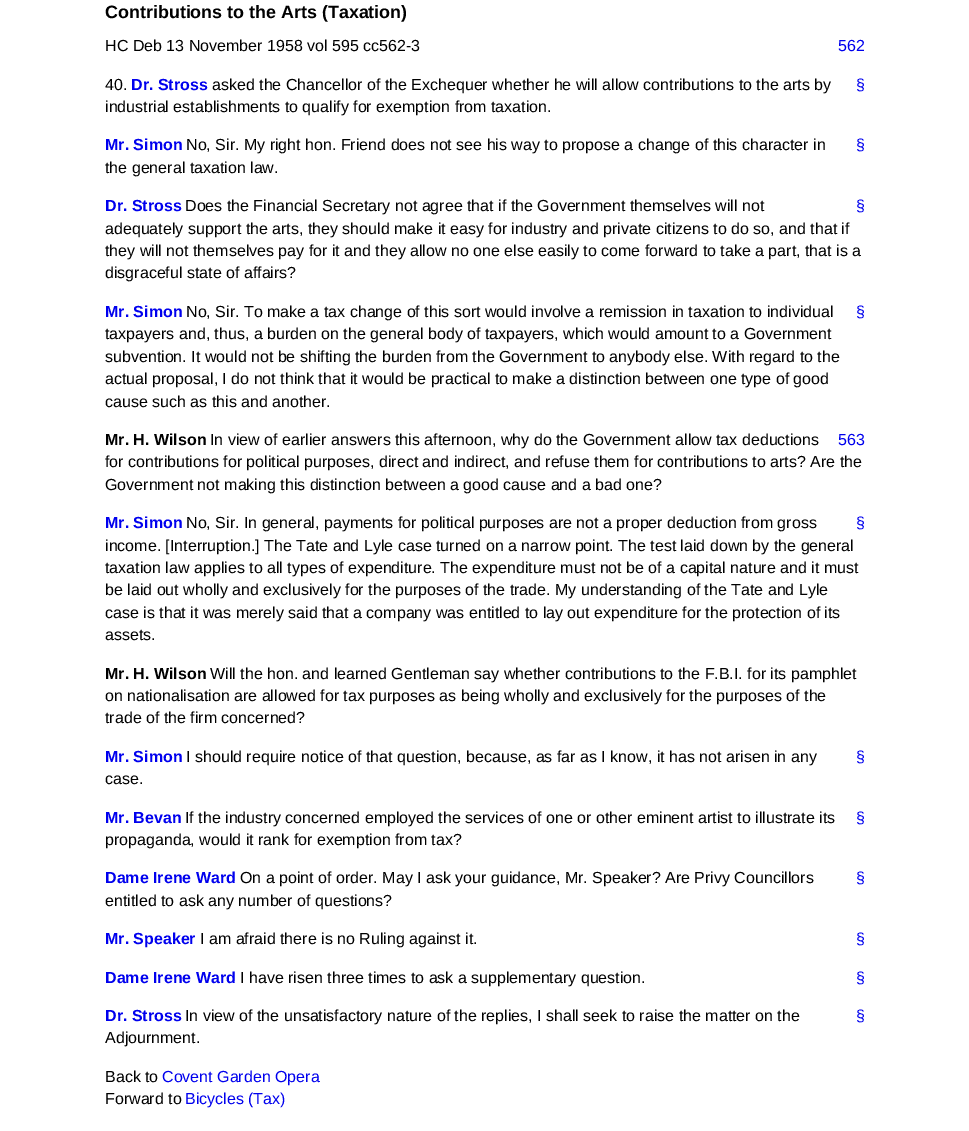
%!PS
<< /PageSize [969 1131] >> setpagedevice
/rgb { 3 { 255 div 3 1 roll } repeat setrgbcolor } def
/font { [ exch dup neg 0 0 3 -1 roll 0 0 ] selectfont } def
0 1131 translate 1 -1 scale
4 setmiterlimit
255 255 255 rgb
0 0 969 1131 rectfill
/LiberationSans-Bold 17.9 font
0 0 0 rgb
105 18 moveto (Contributions to the Arts \(Taxation\)) show
/LiberationSans-Regular 16 font
105 51 moveto (HC Deb 13 November 1958 vol 595 cc562-3) show
0 0 238 rgb
838 51 moveto (562) show
0 0 0 rgb
105 90 moveto (40.) show
/LiberationSans-Bold 16 font
0 0 238 rgb
131 90 moveto (Dr. Stross) show
/LiberationSans-Regular 16 font
0 0 0 rgb
212 90 moveto (asked the Chancellor of the Exchequer whether he will allow contributions to the arts by) show
0 0 238 rgb
856 90 moveto (§) show
0 0 0 rgb
105 112 moveto (industrial establishments to qualify for exemption from taxation.) show
/LiberationSans-Bold 16 font
0 0 238 rgb
105 150 moveto (Mr. Simon) show
/LiberationSans-Regular 16 font
0 0 0 rgb
186 150 moveto (No, Sir. My right hon. Friend does not see his way to propose a change of this character in) show
0 0 238 rgb
856 150 moveto (§) show
0 0 0 rgb
105 173 moveto (the general taxation law.) show
/LiberationSans-Bold 16 font
0 0 238 rgb
105 211 moveto (Dr. Stross) show
/LiberationSans-Regular 16 font
0 0 0 rgb
185 211 moveto (Does the Financial Secretary not agree that if the Government themselves will not) show
0 0 238 rgb
856 211 moveto (§) show
0 0 0 rgb
[
  [(adequately support the arts, they should make it easy for industry and private citizens to do so, and that if) 105 234]
  [(they will not themselves pay for it and they allow no one else easily to come forward to take a part, that is a) 105 256]
  [(disgraceful state of affairs?) 105 278]
] { aload pop moveto show } forall
/LiberationSans-Bold 16 font
0 0 238 rgb
105 317 moveto (Mr. Simon) show
/LiberationSans-Regular 16 font
0 0 0 rgb
186 317 moveto (No, Sir. To make a tax change of this sort would involve a remission in taxation to individual) show
0 0 238 rgb
856 317 moveto (§) show
0 0 0 rgb
[
  [(taxpayers and, thus, a burden on the general body of taxpayers, which would amount to a Government) 105 339]
  [(subvention. It would not be shifting the burden from the Government to anybody else. With regard to the) 105 362]
  [(actual proposal, I do not think that it would be practical to make a distinction between one type of good) 105 384]
  [(cause such as this and another.) 105 407]
] { aload pop moveto show } forall
/LiberationSans-Bold 16 font
105 445 moveto (Mr. H. Wilson) show
/LiberationSans-Regular 16 font
[
  [(In view of earlier answers this afternoon, why do the Government allow tax deductions) 210 445]
  [(for contributions for political purposes, direct and indirect, and refuse them for contributions to arts? Are the) 105 467]
  [(Government not making this distinction between a good cause and a bad one?) 105 490]
] { aload pop moveto show } forall
0 0 238 rgb
838 445 moveto (563) show
/LiberationSans-Bold 16 font
105 528 moveto (Mr. Simon) show
/LiberationSans-Regular 16 font
0 0 0 rgb
186 528 moveto (No, Sir. In general, payments for political purposes are not a proper deduction from gross) show
0 0 238 rgb
856 528 moveto (§) show
0 0 0 rgb
[
  [(income. [Interruption.] The Tate and Lyle case turned on a narrow point. The test laid down by the general) 105 551]
  [(taxation law applies to all types of expenditure. The expenditure must not be of a capital nature and it must) 105 573]
  [(be laid out wholly and exclusively for the purposes of the trade. My understanding of the Tate and Lyle) 105 595]
  [(case is that it was merely said that a company was entitled to lay out expenditure for the protection of its) 105 618]
  [(assets.) 105 640]
] { aload pop moveto show } forall
/LiberationSans-Bold 16 font
105 679 moveto (Mr. H. Wilson) show
/LiberationSans-Regular 16 font
[
  [(Will the hon. and learned Gentleman say whether contributions to the F.B.I. for its pamphlet) 210 679]
  [(on nationalisation are allowed for tax purposes as being wholly and exclusively for the purposes of the) 105 701]
  [(trade of the firm concerned?) 105 723]
] { aload pop moveto show } forall
/LiberationSans-Bold 16 font
0 0 238 rgb
105 762 moveto (Mr. Simon) show
/LiberationSans-Regular 16 font
0 0 0 rgb
186 762 moveto (I should require notice of that question, because, as far as I know, it has not arisen in any) show
0 0 238 rgb
856 762 moveto (§) show
0 0 0 rgb
105 784 moveto (case.) show
/LiberationSans-Bold 16 font
0 0 238 rgb
105 823 moveto (Mr. Bevan) show
/LiberationSans-Regular 16 font
0 0 0 rgb
185 823 moveto (If the industry concerned employed the services of one or other eminent artist to illustrate its) show
0 0 238 rgb
856 823 moveto (§) show
0 0 0 rgb
105 845 moveto (propaganda, would it rank for exemption from tax?) show
/LiberationSans-Bold 16 font
0 0 238 rgb
105 883 moveto (Dame Irene Ward) show
/LiberationSans-Regular 16 font
0 0 0 rgb
240 883 moveto (On a point of order. May I ask your guidance, Mr. Speaker? Are Privy Councillors) show
0 0 238 rgb
856 883 moveto (§) show
0 0 0 rgb
105 906 moveto (entitled to ask any number of questions?) show
/LiberationSans-Bold 16 font
0 0 238 rgb
105 944 moveto (Mr. Speaker) show
/LiberationSans-Regular 16 font
0 0 0 rgb
200 944 moveto (I am afraid there is no Ruling against it.) show
0 0 238 rgb
856 944 moveto (§) show
/LiberationSans-Bold 16 font
105 983 moveto (Dame Irene Ward) show
/LiberationSans-Regular 16 font
0 0 0 rgb
240 983 moveto (I have risen three times to ask a supplementary question.) show
0 0 238 rgb
856 983 moveto (§) show
/LiberationSans-Bold 16 font
105 1021 moveto (Dr. Stross) show
/LiberationSans-Regular 16 font
0 0 0 rgb
185 1021 moveto (In view of the unsatisfactory nature of the replies, I shall seek to raise the matter on the) show
0 0 238 rgb
856 1021 moveto (§) show
0 0 0 rgb
105 1043 moveto (Adjournment.) show
105 1082 moveto (Back to) show
0 0 238 rgb
162 1082 moveto (Covent Garden Opera) show
0 0 0 rgb
105 1104 moveto (Forward to) show
0 0 238 rgb
185 1104 moveto (Bicycles \(Tax\)) show
showpage
